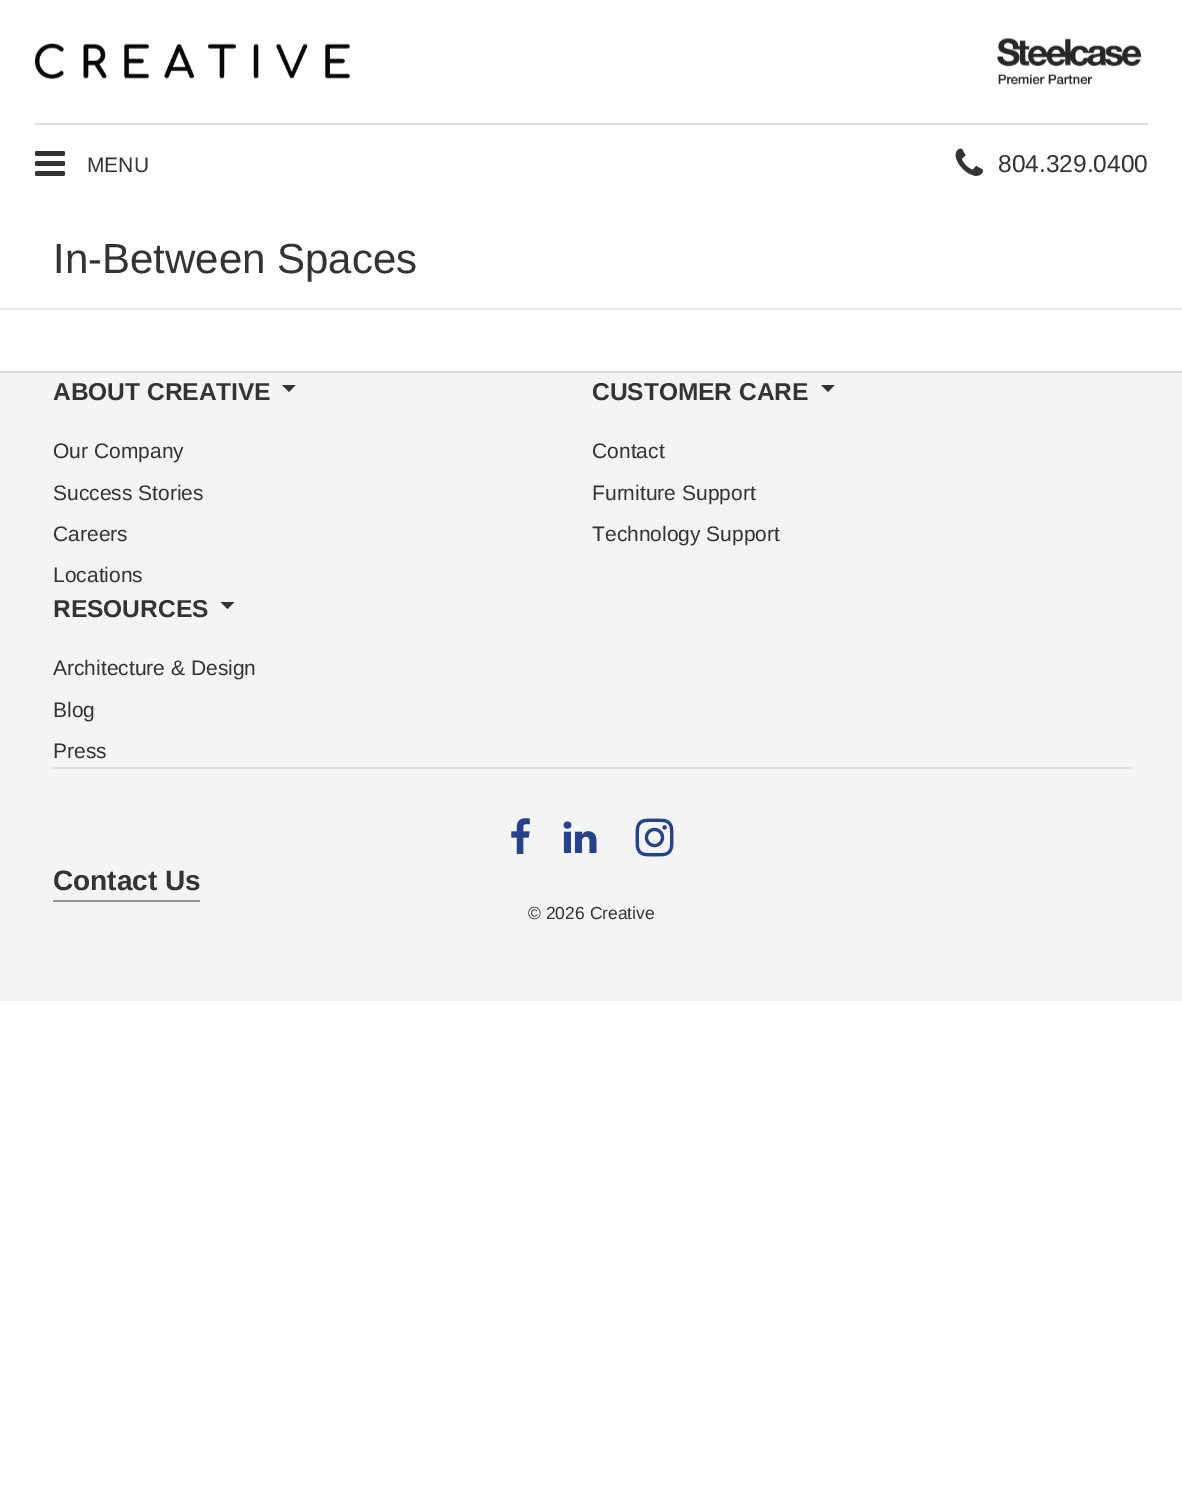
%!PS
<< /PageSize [1182 1510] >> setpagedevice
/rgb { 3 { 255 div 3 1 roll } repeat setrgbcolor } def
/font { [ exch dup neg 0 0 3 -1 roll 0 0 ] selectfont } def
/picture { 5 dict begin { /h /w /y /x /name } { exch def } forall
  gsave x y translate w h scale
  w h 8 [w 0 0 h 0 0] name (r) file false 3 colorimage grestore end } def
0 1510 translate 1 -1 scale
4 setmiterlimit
255 255 255 rgb
0 0 1182 1510 rectfill
(img/1.rgb) 35 43 315 36 picture
(img/2.rgb) 997 37 144 48 picture
221 221 221 rgb
35 123 1113 2 rectfill
(img/3.rgb) 35 151 30 25 picture
(img/4.rgb) 955 148 28 28 picture
[
  [0 308 1182 2 231 231 231]
  [0 373 1182 628 244 244 244]
  [0 371 1182 2 221 221 221]
] { aload pop rgb rectfill } forall
51 51 51 rgb
282 385 moveto 289 392 lineto 295.5 385 lineto closepath fill
821 385 moveto 828 392 lineto 834.5 385 lineto closepath fill
220.5 602 moveto 227.5 609 lineto 234.5 602 lineto closepath fill
221 221 221 rgb
53 767 1078 2 rectfill
(img/5.rgb) 511 818 19 36 picture
(img/6.rgb) 563 821 34 32 picture
(img/7.rgb) 635 818 39 39 picture
146 146 146 rgb
53 900 147 2 rectfill
/LiberationSans-Regular 21 font
51 51 51 rgb
87 172 moveto (MENU) show
/LiberationSans-Regular 24.5 font
998 172 moveto (804.329.0400) show
/LiberationSans-Regular 42 font
53 273 moveto (In-Between Spaces) show
/LiberationSans-Bold 24.5 font
53 400 moveto (ABOUT CREATIVE) show
/LiberationSans-Regular 21 font
[
  [(Our Company) 53 458]
  [(Success Stories) 53 500]
  [(Careers) 53 541]
  [(Locations) 53 582]
] { aload pop moveto show } forall
/LiberationSans-Bold 24.5 font
592 400 moveto (CUSTOMER CARE) show
/LiberationSans-Regular 21 font
[
  [(Contact) 592 458]
  [(Furniture Support) 592 500]
  [(Technology Support) 592 541]
] { aload pop moveto show } forall
/LiberationSans-Bold 24.5 font
53 617 moveto (RESOURCES) show
/LiberationSans-Regular 21 font
[
  [(Architecture & Design) 53 675]
  [(Blog) 53 717]
  [(Press) 53 758]
] { aload pop moveto show } forall
/LiberationSans-Bold 28 font
53 890 moveto (Contact Us) show
/LiberationSans-Regular 17.5 font
528 919 moveto (© 2026 Creative) show
showpage
